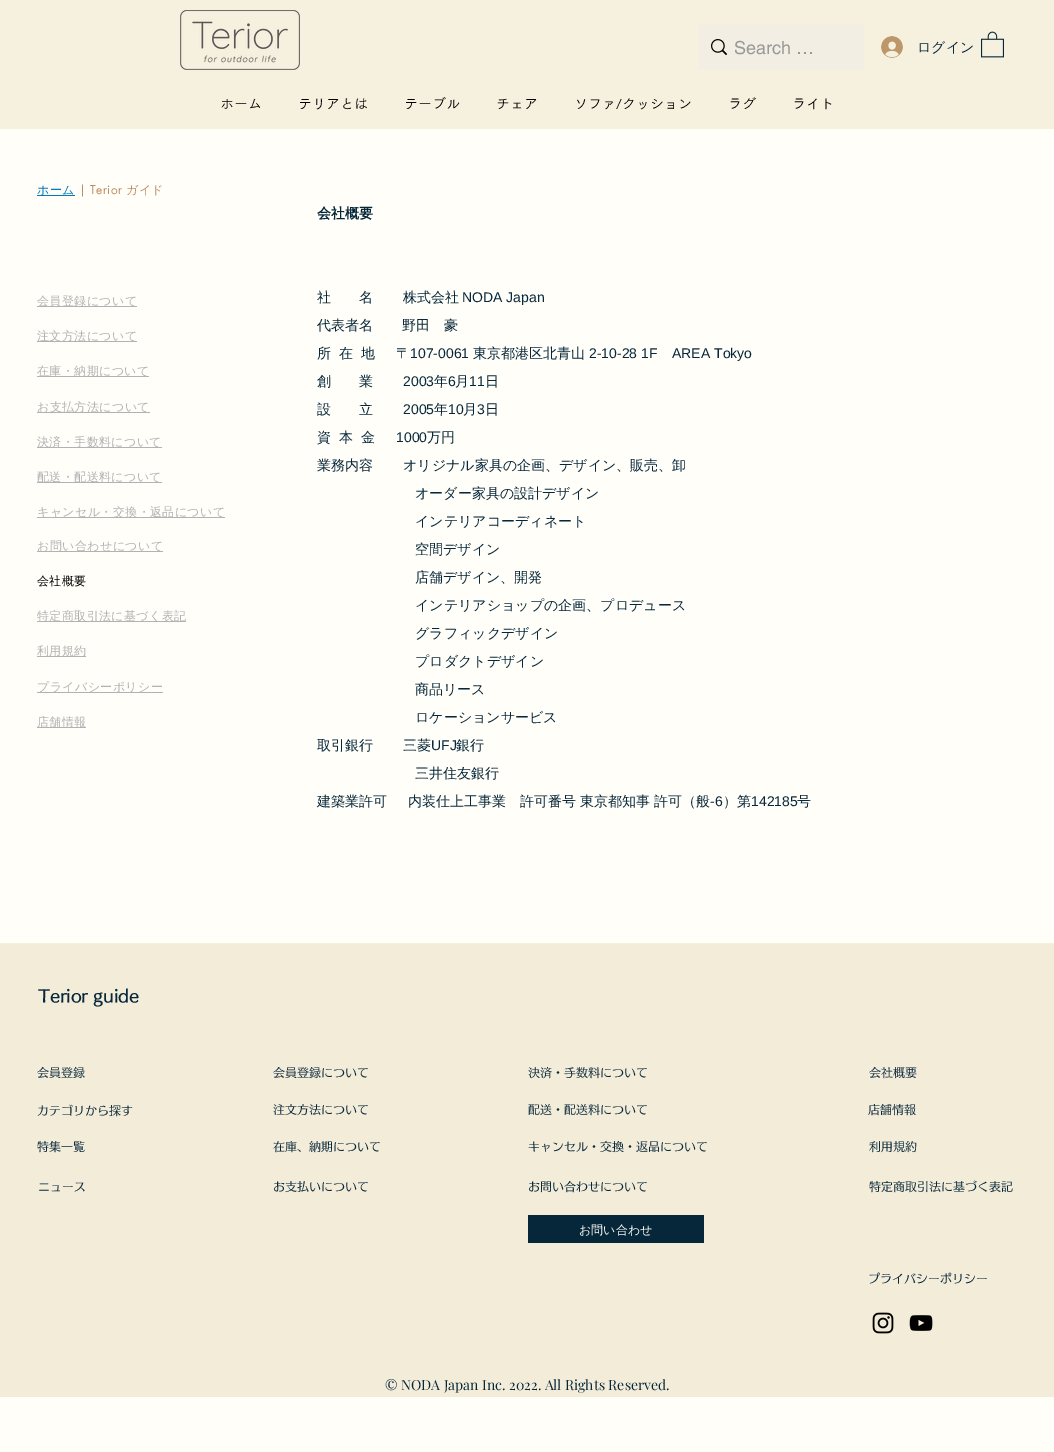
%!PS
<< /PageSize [1054 1452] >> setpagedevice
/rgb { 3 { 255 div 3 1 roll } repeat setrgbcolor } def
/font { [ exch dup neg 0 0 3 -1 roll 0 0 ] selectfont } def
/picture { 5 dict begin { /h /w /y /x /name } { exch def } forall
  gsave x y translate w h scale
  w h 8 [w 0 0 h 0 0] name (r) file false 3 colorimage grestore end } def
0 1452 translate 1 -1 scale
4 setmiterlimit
255 254 248 rgb
0 0 1054 1452 rectfill
246 240 223 rgb
0 0 1054 129 rectfill
(img/1.rgb) 180 10 120 60 picture
242 238 228 rgb
699 24 165 46 rectfill
(img/2.rgb) 711 39 16 16 picture
(img/3.rgb) 881 36 22 22 picture
(img/4.rgb) 981 31 23 27 picture
[
  [37 195 38 1 0 123 187]
  [37 306 100 1 177 178 179]
  [37 341 100 1 177 178 179]
  [37 376 112 1 177 178 179]
  [37 412 113 1 177 178 179]
  [37 447 125 1 177 178 179]
  [37 482 125 1 177 178 179]
  [37 517 188 1 177 178 179]
  [37 551 126 1 177 178 179]
  [37 621 149 1 177 178 179]
  [37 656 49 1 177 178 179]
  [37 692 126 1 177 178 179]
  [37 727 49 1 177 178 179]
  [0 944 1054 453 243 236 217]
  [0 943 1054 1 245 239 222]
  [528 1215 176 28 6 39 58]
] { aload pop rgb rectfill } forall
(img/5.rgb) 872 1312 22 22 picture
(img/6.rgb) 909 1315 24 16 picture
/helvetica-Regular 18 font
153 153 153 rgb
734 54 moveto (Search …) show
/WenQuanYiZenHei-Medium 14 font
6 39 58 rgb
917 52 moveto (ログイン) show
/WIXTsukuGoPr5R-Regular 14 font
0 0 0 rgb
[
  [(ホーム) 220 109]
  [(テリアとは) 298 109]
  [(テーブル) 404 109]
  [(チェア) 496 109]
  [(ソファ/クッション) 574 109]
  [(ラグ) 728 109]
  [(ライト) 792 109]
] { aload pop moveto show } forall
/WenQuanYiZenHei-Medium 12 font
0 123 187 rgb
37 194 moveto 0.4 0 (ホーム) ashow
/futura-Regular 12 font
188 141 95 rgb
79 194 moveto 0.4 0 (| Terior) ashow
/WenQuanYiZenHei-Medium 12 font
126 194 moveto 0.4 0 (ガイド) ashow
177 178 179 rgb
37 305 moveto 0.4 0 (会員登録について) ashow
37 340 moveto 0.4 0 (注文方法について) ashow
37 375 moveto 0.4 0 (在庫・納期について) ashow
37 411 moveto 0.4 0 (お支払方法について) ashow
37 446 moveto 0.4 0 (決済・手数料について) ashow
37 481 moveto 0.4 0 (配送・配送料について) ashow
37 516 moveto 0.4 0 (キャンセル・交換・返品について) ashow
37 550 moveto 0.4 0 (お問い合わせについて) ashow
0 0 0 rgb
37 585 moveto 0.4 0 (会社概要) ashow
177 178 179 rgb
37 620 moveto 0.4 0 (特定商取引法に基づく表記) ashow
37 655 moveto 0.4 0 (利用規約) ashow
37 691 moveto 0.4 0 (プライバシーポリシー) ashow
37 726 moveto 0.4 0 (店舗情報) ashow
/WenQuanYiZenHei-Bold 14 font
6 39 58 rgb
317 218 moveto (会社概要) show
/WenQuanYiZenHei-Medium 14 font
317 302 moveto (社　　名) show
403 302 moveto (株式会社) show
/LiberationSans-Regular 14 font
462 302 moveto (NODA Japan) show
/WenQuanYiZenHei-Medium 14 font
[
  [(代表者名) 317 330]
  [(野田　豪) 402 330]
  [(所) 317 358]
  [(在) 339 358]
  [(地) 361 358]
  [(〒) 396 358]
] { aload pop moveto show } forall
/LiberationSans-Regular 14 font
410 358 moveto (107-0061) show
/WenQuanYiZenHei-Medium 14 font
473 358 moveto (東京都港区北青山) show
/LiberationSans-Regular 14 font
589 358 moveto (2-10-28 1F) show
672 358 moveto (AREA Tokyo) show
/WenQuanYiZenHei-Medium 14 font
317 386 moveto (創　　業) show
/LiberationSans-Regular 14 font
403 386 moveto (2003) show
/WenQuanYiZenHei-Medium 14 font
434 386 moveto (年) show
/LiberationSans-Regular 14 font
448 386 moveto (6) show
/WenQuanYiZenHei-Medium 14 font
455 386 moveto (月) show
/LiberationSans-Regular 14 font
469 386 moveto (11) show
/WenQuanYiZenHei-Medium 14 font
485 386 moveto (日) show
317 414 moveto (設　　立) show
/LiberationSans-Regular 14 font
403 414 moveto (2005) show
/WenQuanYiZenHei-Medium 14 font
434 414 moveto (年) show
/LiberationSans-Regular 14 font
448 414 moveto (10) show
/WenQuanYiZenHei-Medium 14 font
463 414 moveto (月) show
/LiberationSans-Regular 14 font
477 414 moveto (3) show
/WenQuanYiZenHei-Medium 14 font
[
  [(日) 485 414]
  [(資) 317 442]
  [(本) 339 442]
  [(金) 361 442]
] { aload pop moveto show } forall
/LiberationSans-Regular 14 font
396 442 moveto (1000) show
/WenQuanYiZenHei-Medium 14 font
[
  [(万円) 427 442]
  [(業務内容) 317 470]
  [(オリジナル家具の企画、デザイン、販売、卸) 403 470]
  [(オーダー家具の設計デザイン) 415 498]
  [(インテリアコーディネート) 415 526]
  [(空間デザイン) 415 554]
  [(店舗デザイン、開発) 415 582]
  [(インテリアショップの企画、プロデュース) 415 610]
  [(グラフィックデザイン) 415 638]
  [(プロダクトデザイン) 415 666]
  [(商品リース) 415 694]
  [(ロケーションサービス) 415 722]
  [(取引銀行) 317 750]
  [(三菱) 403 750]
] { aload pop moveto show } forall
/LiberationSans-Regular 14 font
431 750 moveto (UFJ) show
/WenQuanYiZenHei-Medium 14 font
[
  [(銀行) 456 750]
  [(三井住友銀行) 415 778]
  [(建築業許可) 317 806]
  [(内装仕上工事業　許可番号 東京都知事 許可（般) 408 806]
] { aload pop moveto show } forall
/LiberationSans-Regular 14 font
710 806 moveto (-6) show
/WenQuanYiZenHei-Medium 14 font
723 806 moveto (）第) show
/LiberationSans-Regular 14 font
751 806 moveto (142185) show
/WenQuanYiZenHei-Medium 14 font
797 806 moveto (号) show
/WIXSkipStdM-Bold 16 font
38 1002 moveto (Terior guide) show
/WIXSkipStdM-Medium 12 font
[
  [(会員登録) 37 1077]
  [(会員登録について) 273 1077]
  [(決済・手数料について) 528 1077]
  [(会社概要) 869 1077]
  [(カテゴリから探す) 37 1115]
  [(注文方法について) 273 1114]
  [(配送・配送料について) 528 1114]
  [(店舗情報) 868 1114]
  [(特集一覧) 37 1151]
  [(在庫、納期について) 273 1151]
  [(キャンセル・交換・返品について) 528 1151]
  [(利用規約) 869 1151]
  [(ニュース) 38 1191]
  [(お支払いについて) 273 1191]
  [(お問い合わせについて) 528 1191]
  [(特定商取引法に基づく表記) 869 1191]
] { aload pop moveto show } forall
/WenQuanYiZenHei-Medium 12 font
255 254 248 rgb
579 1234 moveto (お問い合わせ) show
/WIXSkipStdM-Medium 12 font
6 39 58 rgb
868 1283 moveto (プライバシーポリシー) show
/PlayfairDisplay-Regular 14 font
385 1390 moveto (© NODA Japan Inc. 2022. All Rights Reserved.) show
showpage
